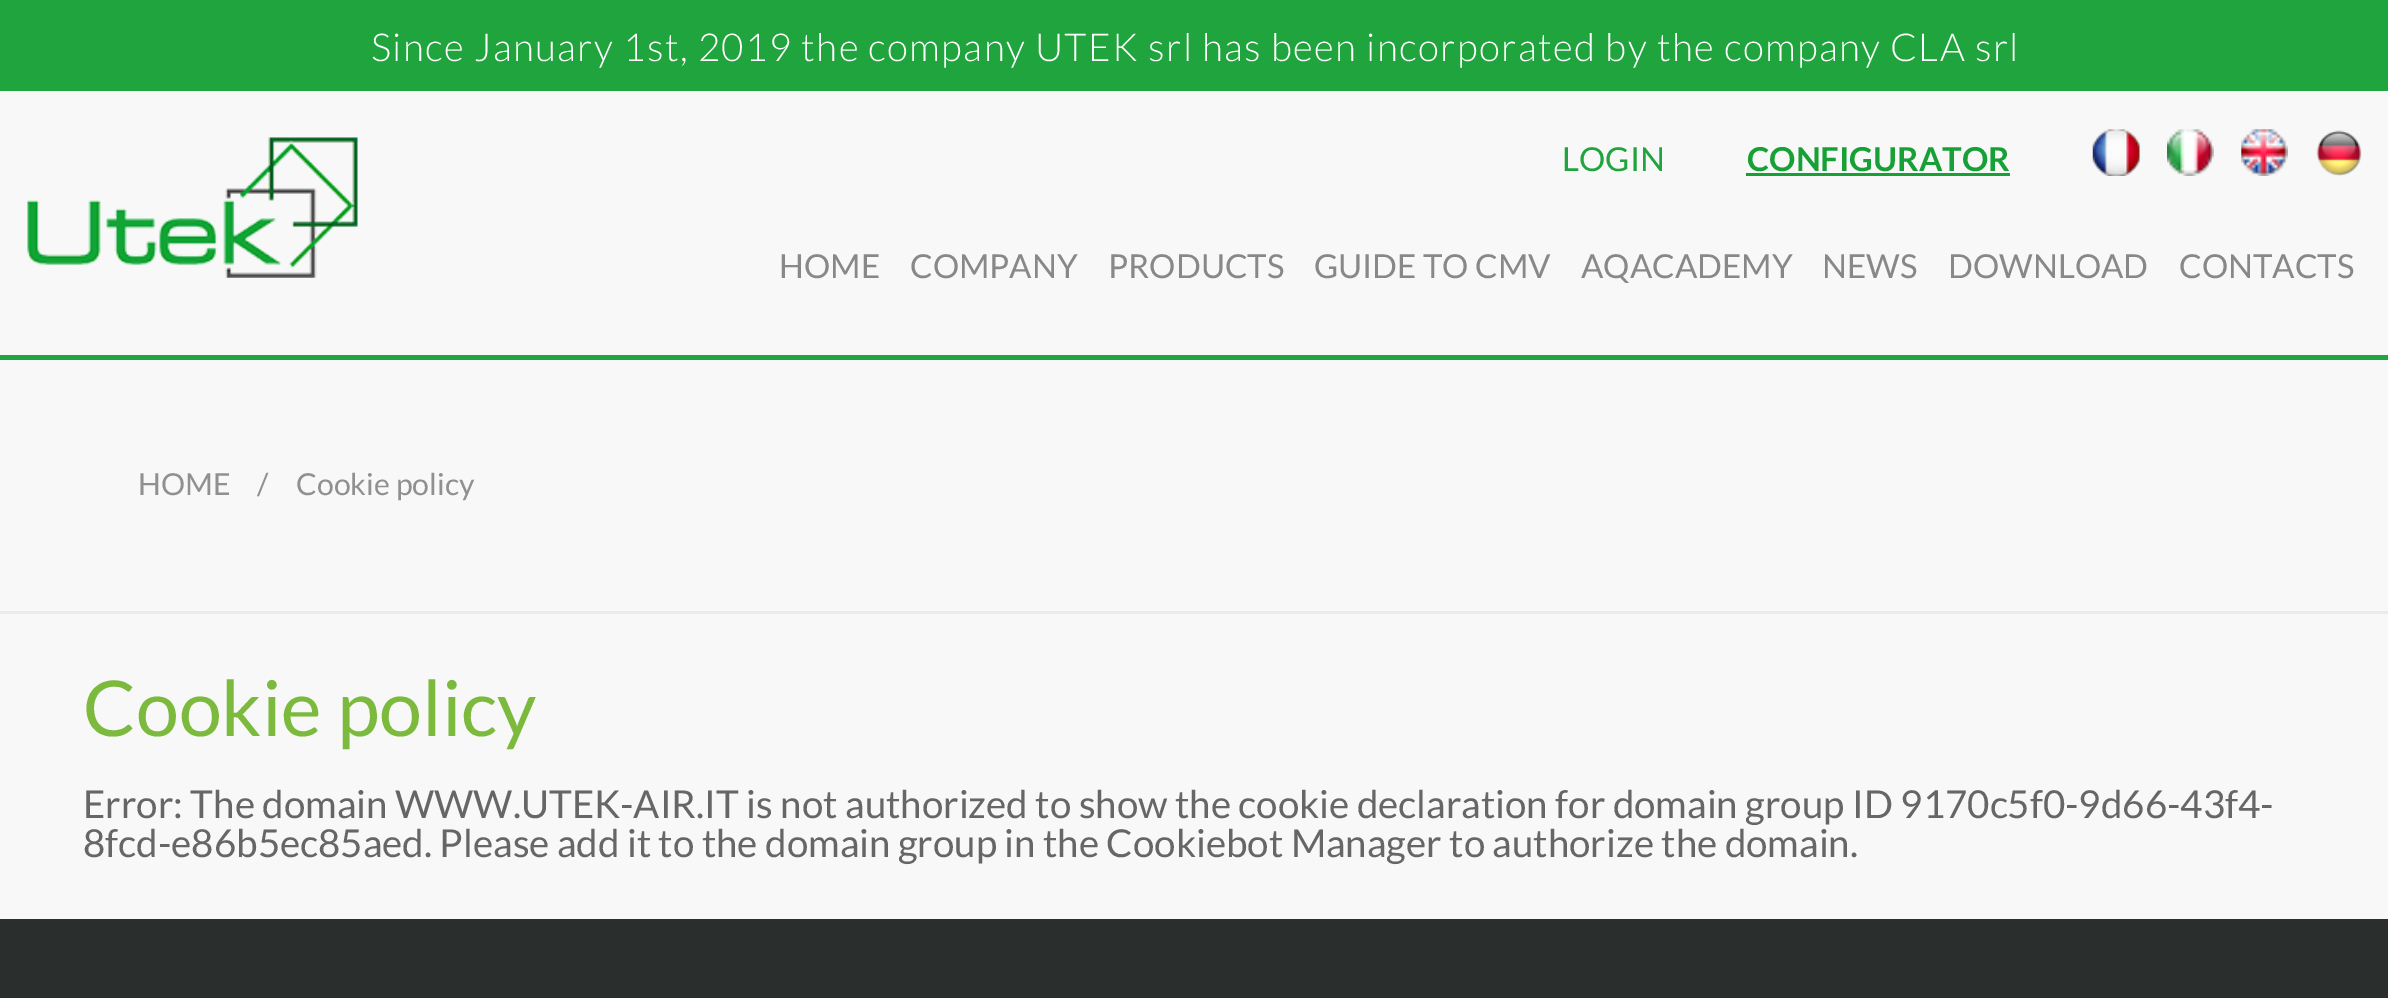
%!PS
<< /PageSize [2388 998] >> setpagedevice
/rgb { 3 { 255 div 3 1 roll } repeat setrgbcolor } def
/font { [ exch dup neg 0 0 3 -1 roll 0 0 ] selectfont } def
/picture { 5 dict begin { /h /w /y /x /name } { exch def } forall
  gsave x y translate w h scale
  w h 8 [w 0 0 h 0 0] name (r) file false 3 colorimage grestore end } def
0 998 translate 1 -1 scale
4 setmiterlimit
42 47 45 rgb
0 0 2388 998 rectfill
[
  [0 91 2388 264 248 248 248]
  [0 355 2388 5 32 164 61]
  [0 0 2388 91 32 164 61]
] { aload pop rgb rectfill } forall
(img/1.rgb) 27 137 331 141 picture
23 160 53 rgb
1746 173 264 3 rectfill
(img/2.rgb) 2092 129 48 47 picture
(img/3.rgb) 2167 129 47 47 picture
(img/4.rgb) 2241 129 47 47 picture
(img/5.rgb) 2316 130 46 46 picture
248 248 248 rgb
0 360 2388 559 rectfill
235 235 235 rgb
0 611 2388 3 rectfill
/Lato-Light 38.5 font
255 255 255 rgb
371 61 moveto 1.38 0 (Since January 1st, 2019 the company UTEK srl has been incorporated by the company CLA srl) ashow
/Lato-Regular 33 font
32 164 61 rgb
1562 171 moveto (LOGIN) show
/Lato-Bold 33 font
23 160 53 rgb
1747 171 moveto (CONFIGURATOR) show
/Lato-Regular 33 font
136 136 136 rgb
[
  [(HOME) 779 278]
  [(COMPANY) 910 278]
  [(PRODUCTS) 1108 278]
  [(GUIDE TO CMV) 1314 278]
  [(AQACADEMY) 1581 278]
  [(NEWS) 1822 278]
  [(DOWNLOAD) 1948 278]
  [(CONTACTS) 2179 278]
] { aload pop moveto show } forall
/Lato-Regular 30.25 font
144 144 144 rgb
[
  [(HOME) 138 495]
  [(/) 257 495]
  [(Cookie policy) 296 495]
] { aload pop moveto show } forall
/Lato-Regular 77 font
124 186 61 rgb
83 736 moveto (Cookie policy) show
/Lato-Regular 38.5 font
102 102 102 rgb
83 818 moveto (Error: The domain WWW.UTEK-AIR.IT is not authorized to show the cookie declaration for domain group ID 9170c5f0-9d66-43f4-) show
83 857 moveto (8fcd-e86b5ec85aed. Please add it to the domain group in the Cookiebot Manager to authorize the domain.) show
showpage
